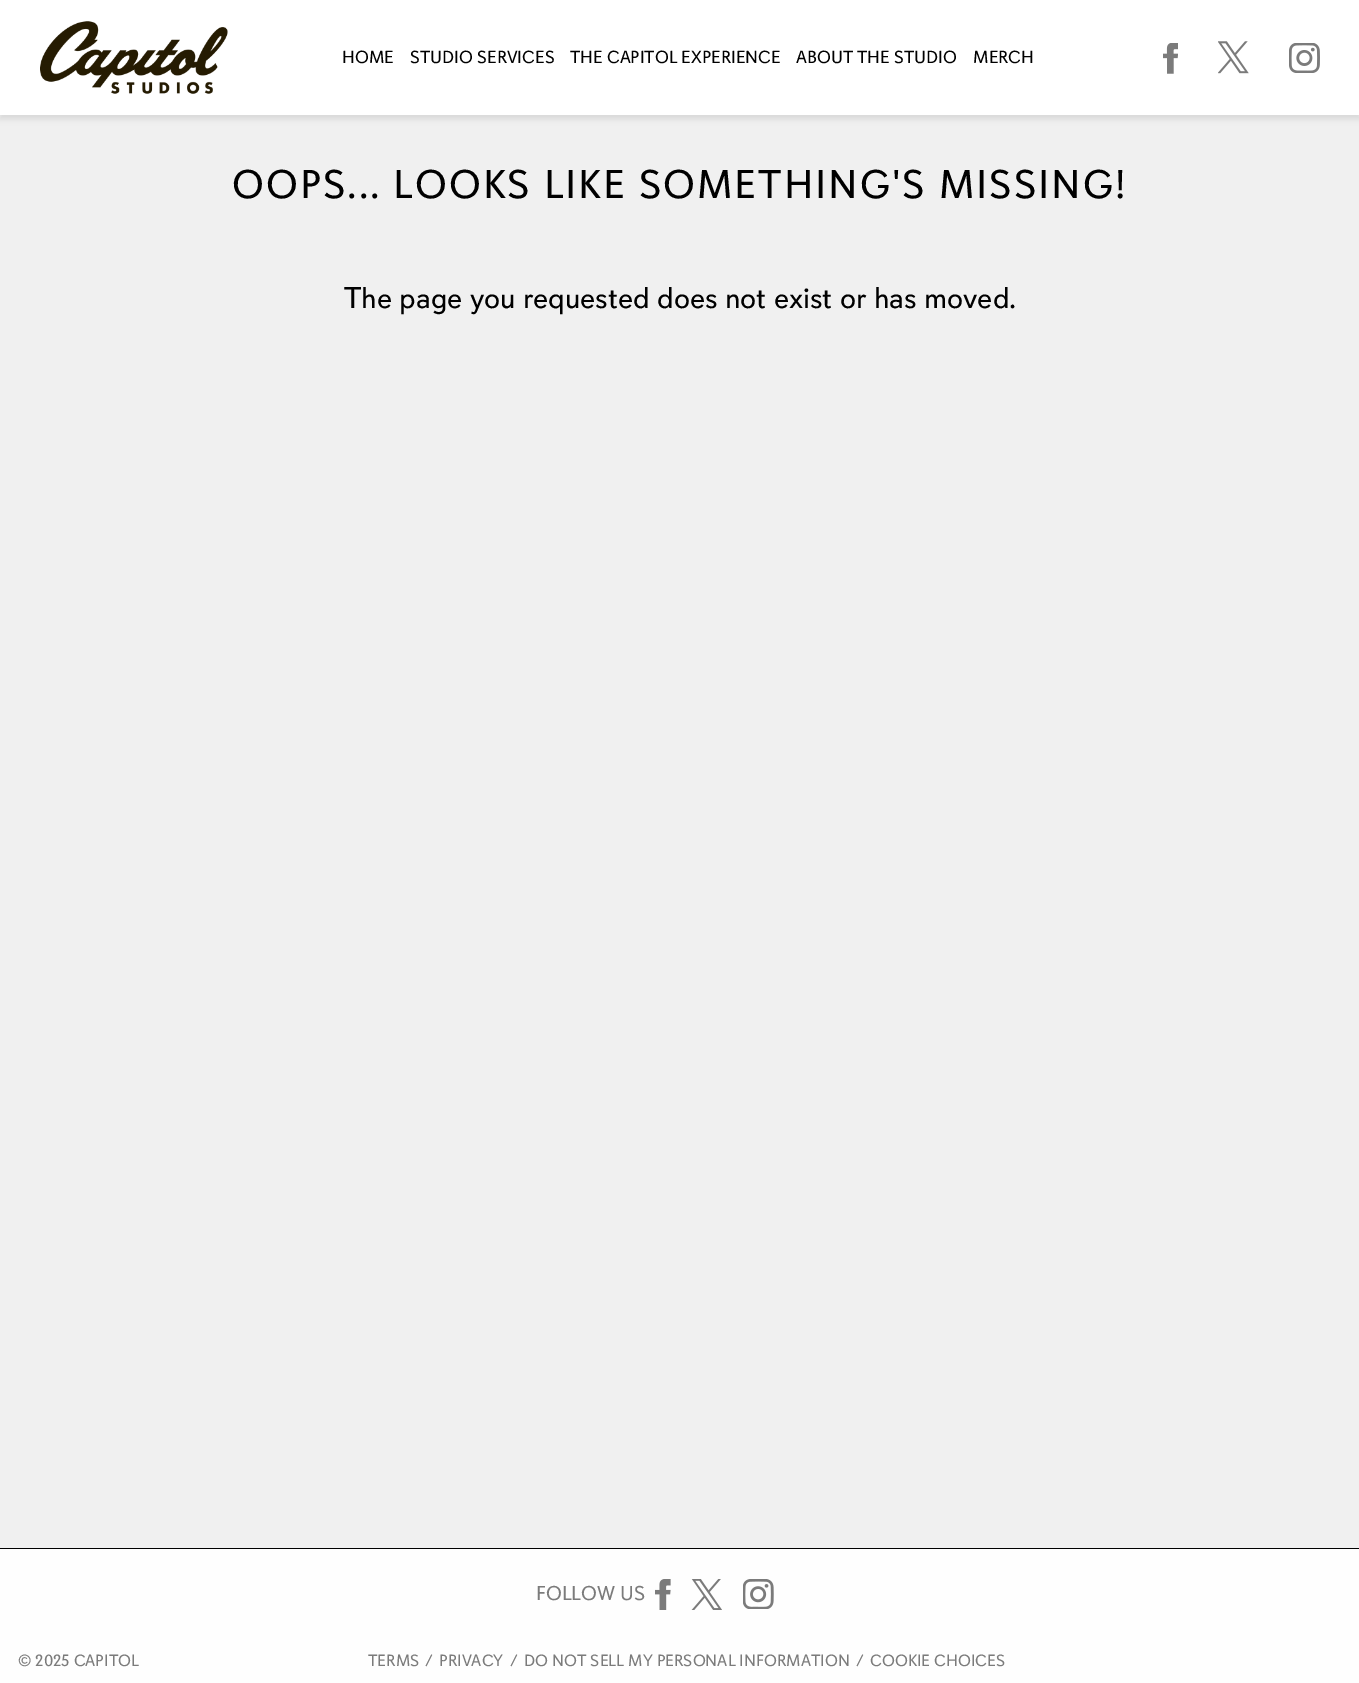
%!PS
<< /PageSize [1359 1683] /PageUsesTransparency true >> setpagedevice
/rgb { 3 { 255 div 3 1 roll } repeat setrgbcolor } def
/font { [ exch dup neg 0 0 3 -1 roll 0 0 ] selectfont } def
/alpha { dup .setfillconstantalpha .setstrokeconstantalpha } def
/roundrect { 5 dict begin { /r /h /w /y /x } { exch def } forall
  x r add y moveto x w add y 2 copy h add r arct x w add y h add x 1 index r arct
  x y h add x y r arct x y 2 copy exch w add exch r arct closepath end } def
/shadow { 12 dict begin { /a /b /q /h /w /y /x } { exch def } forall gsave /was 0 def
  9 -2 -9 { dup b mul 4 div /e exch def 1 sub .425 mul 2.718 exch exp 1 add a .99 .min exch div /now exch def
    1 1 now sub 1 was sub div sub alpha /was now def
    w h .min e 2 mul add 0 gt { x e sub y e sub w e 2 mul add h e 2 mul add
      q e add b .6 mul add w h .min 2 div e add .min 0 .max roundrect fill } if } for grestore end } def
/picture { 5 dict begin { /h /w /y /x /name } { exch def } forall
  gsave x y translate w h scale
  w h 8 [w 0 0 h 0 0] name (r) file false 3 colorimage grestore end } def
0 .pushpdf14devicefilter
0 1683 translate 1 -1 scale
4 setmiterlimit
240 240 240 rgb
0 0 1359 1683 rectfill
0 0 0 rgb
0 4 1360 115 0 3 0.1 shadow
255 255 255 rgb
0 0 1359 115 rectfill
(img/1.rgb) 40 21 188 73 picture
(img/2.rgb) 1163 43 15 31 picture
(img/3.rgb) 1218 41 31 33 picture
(img/4.rgb) 1289 43 31 30 picture
254 254 254 rgb
0 1549 1359 134 rectfill
0 0 0 rgb
0 1548 1359 1 rectfill
(img/5.rgb) 655 1579 16 31 picture
(img/6.rgb) 691 1579 31 31 picture
(img/7.rgb) 743 1579 31 30 picture
/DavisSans-Regular 17.5 font
[
  [(HOME) 342 63]
  [(STUDIO SERVICES) 410 63]
  [(THE CAPITOL EXPERIENCE) 570 63]
  [(ABOUT THE STUDIO) 796 63]
  [(MERCH) 973 63]
] { aload pop moveto show } forall
/DavisSans-Regular 40 font
232 198 moveto 2 0 (OOPS... LOOKS LIKE SOMETHING'S MISSING!) ashow
/DavisSans-Regular 30 font
344 308 moveto (The page you requested does not exist or has moved.) show
/DavisSans-Regular 20 font
123 123 123 rgb
536 1600 moveto (FOLLOW US) show
/DavisSans-Regular 16.25 font
[
  [(© 2025 CAPITOL) 18 1666]
  [(TERMS) 368 1666]
  [(/) 425 1666]
  [(PRIVACY) 439 1666]
  [(/) 510 1666]
  [(DO NOT SELL MY PERSONAL INFORMATION) 524 1666]
  [(/) 856 1666]
  [(COOKIE CHOICES) 870 1666]
] { aload pop moveto show } forall
.poppdf14devicefilter showpage
